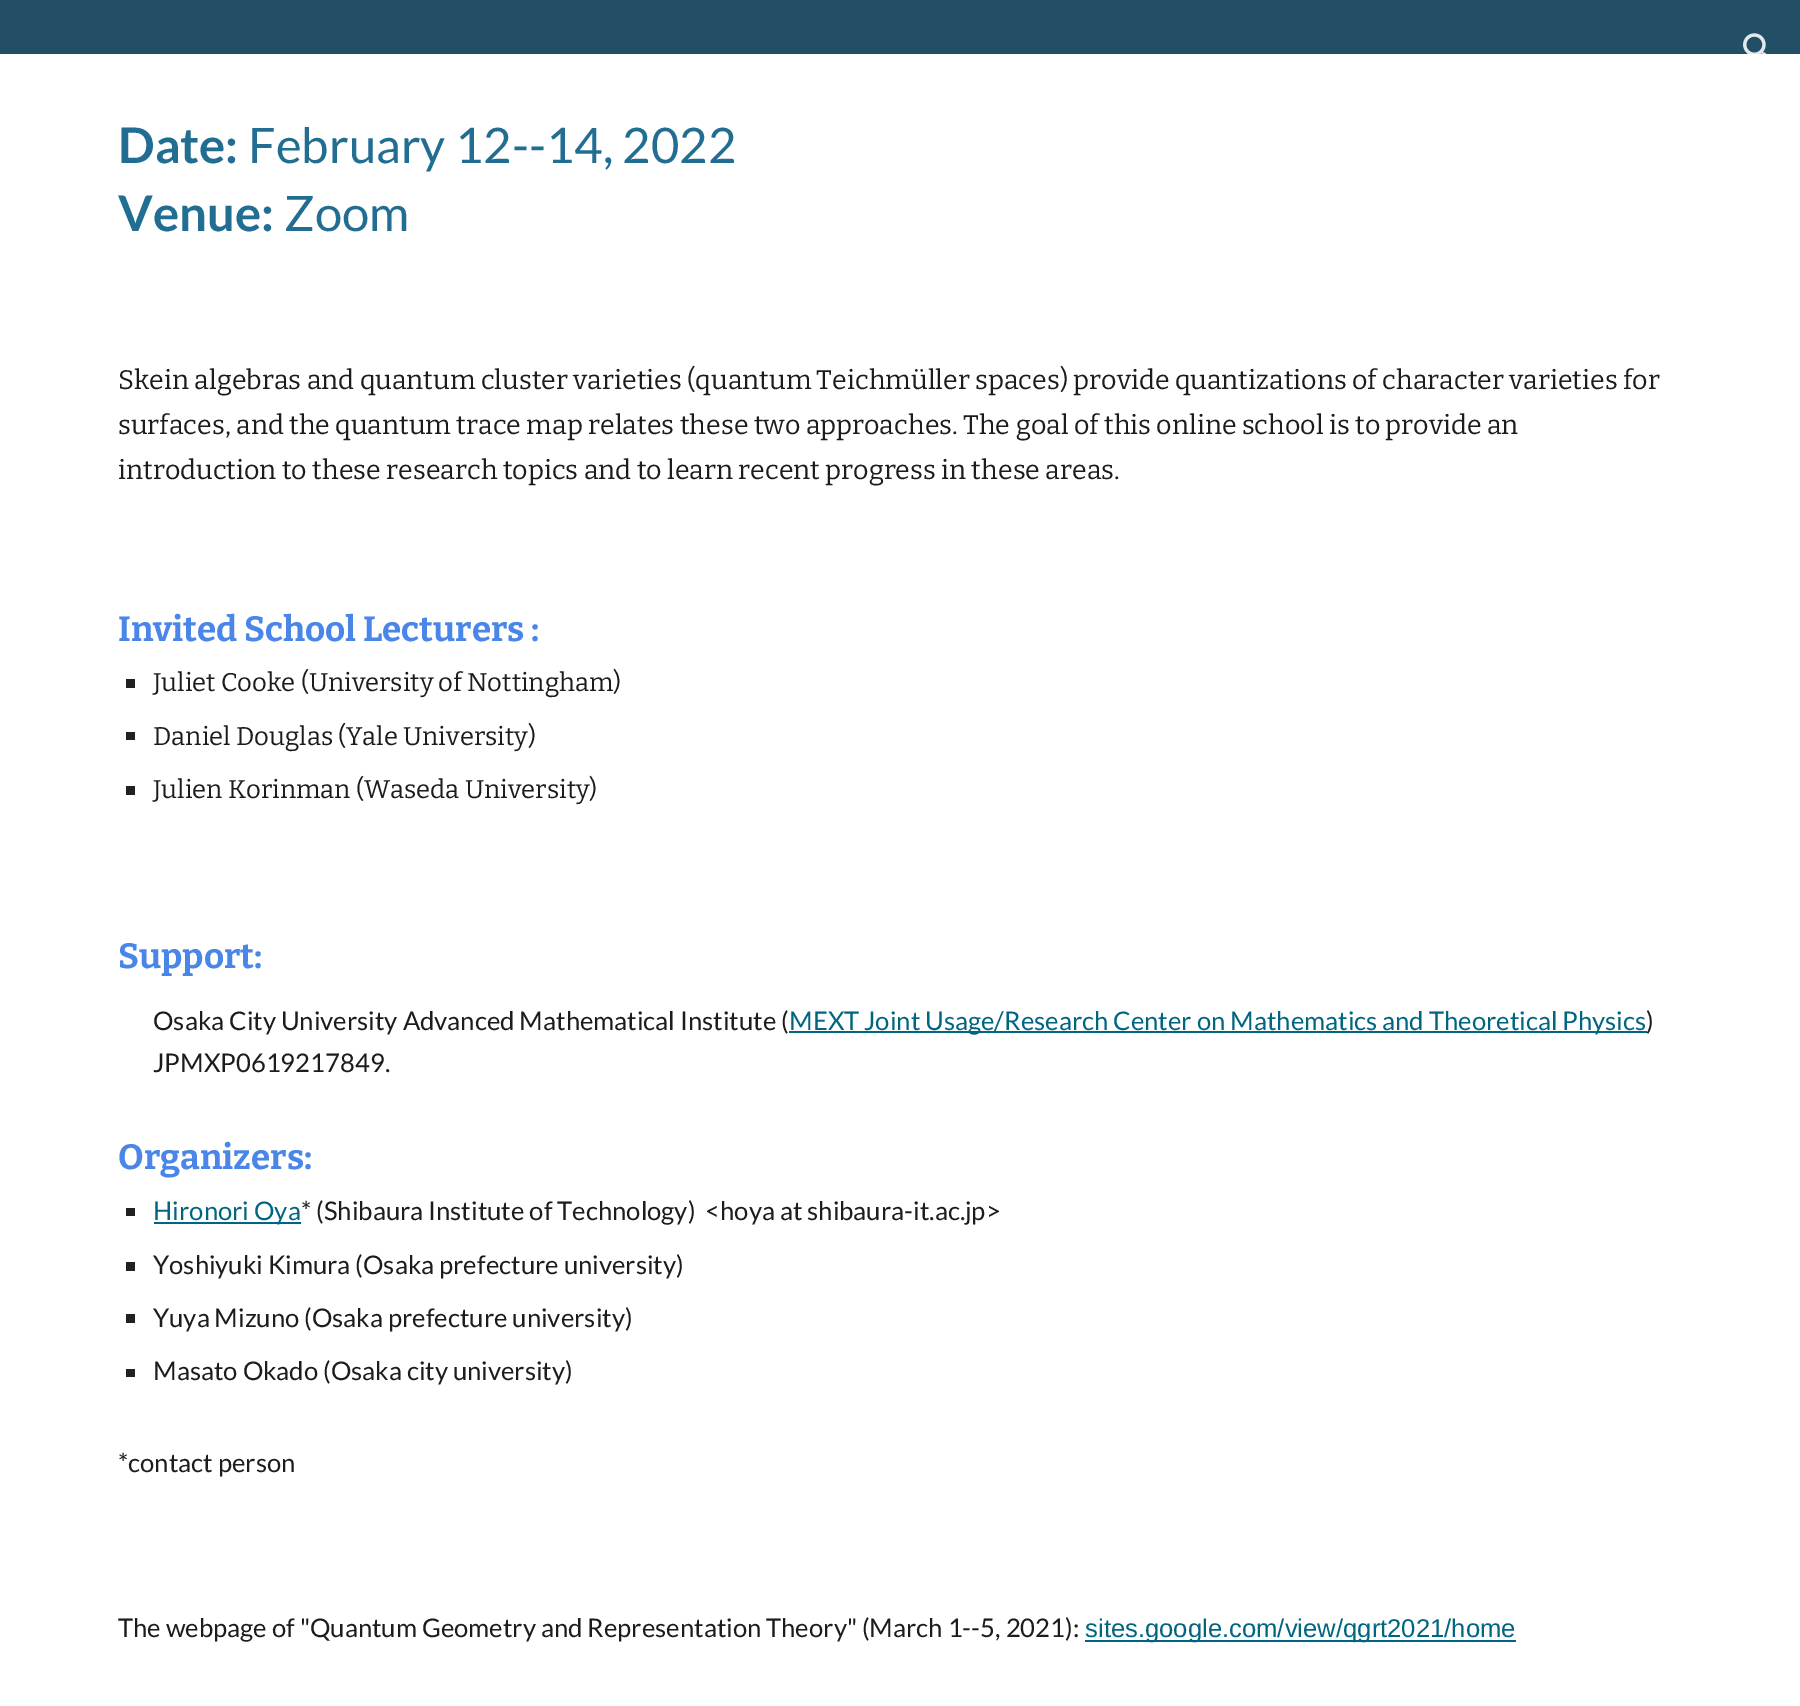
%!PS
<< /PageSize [1800 1706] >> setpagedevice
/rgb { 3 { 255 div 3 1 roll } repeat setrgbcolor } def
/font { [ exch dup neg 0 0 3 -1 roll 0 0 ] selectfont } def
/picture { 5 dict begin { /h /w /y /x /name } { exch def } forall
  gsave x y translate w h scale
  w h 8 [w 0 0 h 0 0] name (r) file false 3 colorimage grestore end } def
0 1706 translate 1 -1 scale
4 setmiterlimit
255 255 255 rgb
0 0 1800 1706 rectfill
34 79 101 rgb
0 0 1800 54 rectfill
(img/1.rgb) 1743 33 24 21 picture
[
  [126 679 9 9 33 33 33]
  [126 732 9 8 33 33 33]
  [126 786 9 9 33 33 33]
  [789 1031 858 2 0 101 128]
  [126 1208 9 8 33 33 33]
  [154 1222 147 2 0 101 128]
  [126 1262 9 9 33 33 33]
  [126 1314 9 9 33 33 33]
  [126 1369 9 8 33 33 33]
  [1085 1640 431 2 0 101 128]
] { aload pop rgb rectfill } forall
/Lato-Bold 49 font
34 110 147 rgb
118 163 moveto (Date:) show
/Lato-Regular 49 font
248 163 moveto (February 12--14, 2022) show
/Lato-Bold 49 font
118 231 moveto (Venue:) show
/Lato-Regular 49 font
284 231 moveto (Zoom) show
/Bitter-Regular 26.83 font
29 28 29 rgb
[
  [(Skein algebras and quantum cluster varieties \(quantum Teichmüller spaces\) provide quantizations of character varieties for) 118 389]
  [(surfaces, and the quantum trace map relates these two approaches. The goal of this online school is to provide an) 118 434]
  [(introduction to these research topics and to learn recent progress in these areas.) 118 479]
] { aload pop moveto show } forall
/Bitter-Bold 35 font
74 134 232 rgb
118 641 moveto (Invited School Lecturers :) show
/Bitter-Regular 25.65 font
29 28 29 rgb
[
  [(Juliet Cooke \(University of Nottingham\)) 153 691]
  [(Daniel Douglas \(Yale University\)) 153 745]
  [(Julien Korinman \(Waseda University\)) 153 798]
] { aload pop moveto show } forall
/Bitter-Bold 35 font
74 134 232 rgb
118 968 moveto (Support:) show
/Lato-Regular 25.65 font
29 28 29 rgb
153 1030 moveto (Osaka City University Advanced Mathematical Institute \() show
0 101 128 rgb
789 1030 moveto (MEXT Joint Usage/Research Center on Mathematics and Theoretical Physics) show
29 28 29 rgb
1646 1030 moveto (\)) show
153 1072 moveto (JPMXP0619217849.) show
/Bitter-Bold 35 font
74 134 232 rgb
118 1169 moveto (Organizers:) show
/Lato-Regular 25.65 font
0 101 128 rgb
153 1220 moveto (Hironori Oya) show
29 28 29 rgb
[
  [(* \(Shibaura Institute of Technology\)  <hoya at shibaura-it.ac.jp) 301 1220]
  [(>) 986 1220]
  [(Yoshiyuki Kimura \(Osaka prefecture university) 153 1274]
  [(\)) 676 1274]
  [(Yuya Mizuno \(Osaka prefecture university\)) 153 1327]
  [(Masato Okado \(Osaka city university\)) 153 1380]
  [(*contact person) 118 1472]
  [(The webpage of "Quantum Geometry and Representation Theory" \(March 1--5, 2021\):) 118 1637]
] { aload pop moveto show } forall
/LiberationSans-Regular 25.65 font
0 101 128 rgb
1085 1637 moveto (sites.google.com/view/qgrt2021/home) show
showpage
